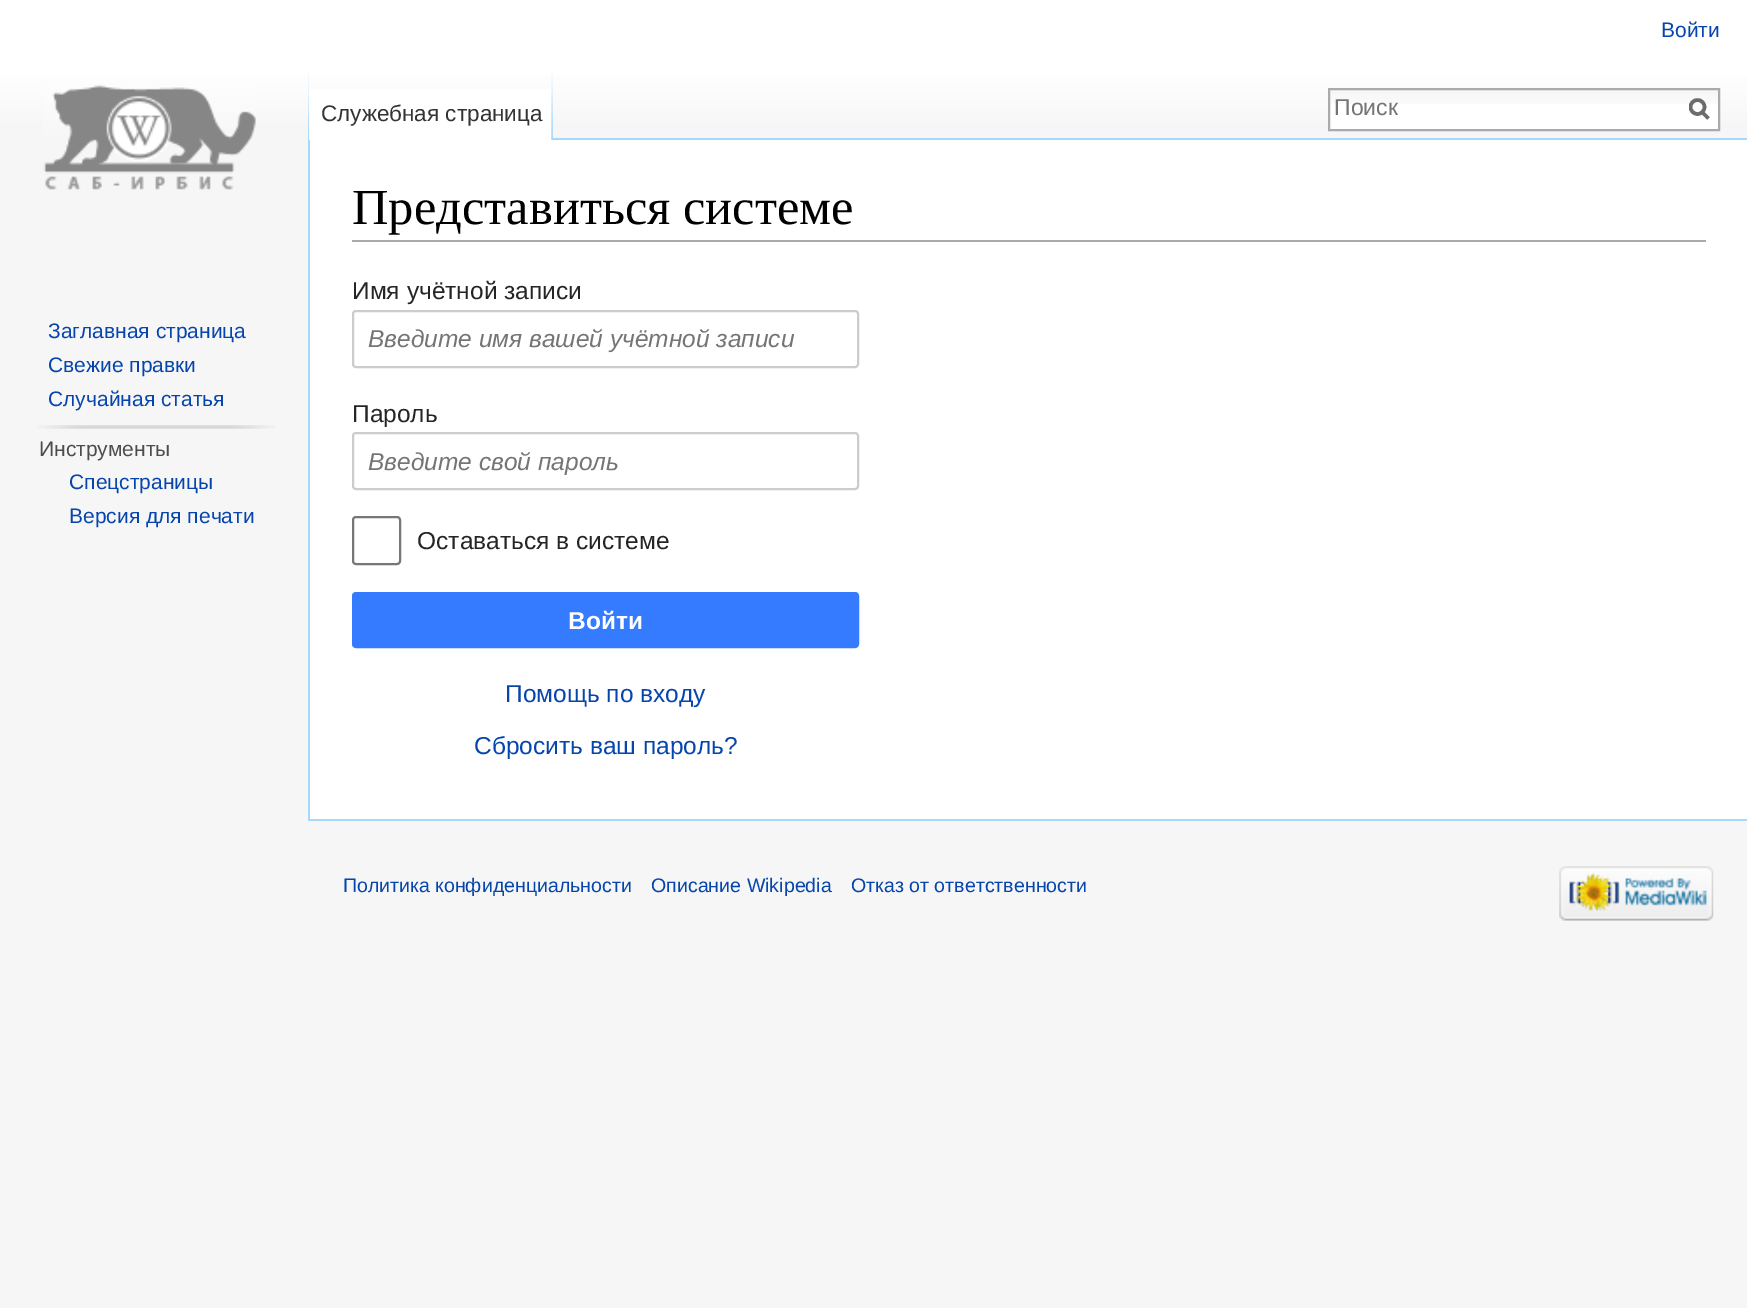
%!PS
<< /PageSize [1747 1308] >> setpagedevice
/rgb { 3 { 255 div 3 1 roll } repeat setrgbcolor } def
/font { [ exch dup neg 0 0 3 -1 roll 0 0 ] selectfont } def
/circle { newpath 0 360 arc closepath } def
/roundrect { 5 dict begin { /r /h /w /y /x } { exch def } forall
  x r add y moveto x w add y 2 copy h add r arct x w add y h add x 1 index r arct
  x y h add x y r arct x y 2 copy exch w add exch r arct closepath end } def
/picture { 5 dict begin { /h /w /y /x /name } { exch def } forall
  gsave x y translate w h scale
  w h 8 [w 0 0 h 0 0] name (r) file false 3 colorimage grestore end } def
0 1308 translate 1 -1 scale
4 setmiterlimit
246 246 246 rgb
0 0 1747 1308 rectfill
gsave 0 0 moveto 1747 0 lineto 1747 121 lineto 0 121 lineto closepath clip newpath
<< /ShadingType 2 /ColorSpace /DeviceRGB /Coords [874 0 874 140] /Extend [true true] /Function << /FunctionType 3 /Domain [0 1] /Functions [<< /FunctionType 2 /Domain [0 1] /C0 [1 1 1] /C1 [1 1 1] /N 1 >> << /FunctionType 2 /Domain [0 1] /C0 [1 1 1] /C1 [0.965 0.965 0.965] /N 1 >>] /Bounds [0.5] /Encode [0 1 0 1] >> >> shfill grestore
(img/1.rgb) 308 70 1 68 picture
[
  [308 819 1439 2 167 215 249]
  [308 138 2 683 167 215 249]
  [309 89 244 51 255 255 255]
] { aload pop rgb rectfill } forall
(img/2.rgb) 551 71 2 69 picture
1330 104 388 25 rectfill
(img/3.rgb) 1330 90 388 14 picture
170 170 170 rgb
2 setlinewidth
1329 89 390 41 rectstroke
108 108 108 rgb
3.5 setlinewidth
1708.5 118.5 moveto 1701.5 111.5 lineto stroke
gsave
1689 98 21 23 rectclip
1697.5 107 7 circle stroke
grestore
(img/4.rgb) 43 85 213 105 picture
(img/5.rgb) 38 425 237 4 picture
[
  [310 140 1437 679 255 255 255]
  [553 138 1194 2 167 215 249]
  [352 240 1354 2 170 170 170]
] { aload pop rgb rectfill } forall
204 204 204 rgb
2 setlinewidth
353 311 505 56 3 roundrect stroke
353 433 505 56 3 roundrect stroke
119 119 119 rgb
353 517 47 47 3 roundrect stroke
52 123 255 rgb
353 593 505 54 3 roundrect gsave fill grestore
stroke
(img/6.rgb) 1559 866 155 55 picture
/LiberationSans-Regular 21 font
6 69 173 rgb
1661 37 moveto (Войти) show
/LiberationSans-Regular 22.5 font
51 51 51 rgb
321 121 moveto (Служебная страница) show
/LiberationSans-Regular 23 font
117 117 117 rgb
1334 115 moveto (Поиск) show
/LiberationSans-Regular 21 font
6 69 173 rgb
[
  [(Заглавная страница) 48 338]
  [(Свежие правки) 48 372]
  [(Случайная статья) 48 406]
] { aload pop moveto show } forall
77 77 77 rgb
39 456 moveto (Инструменты) show
6 69 173 rgb
69 489 moveto (Спецстраницы) show
69 523 moveto (Версия для печати) show
/LiberationSerif-Regular 50.5 font
0 0 0 rgb
352 224 moveto (Представиться системе) show
/LiberationSans-Regular 24.5 font
37 37 37 rgb
352 299 moveto (Имя учётной записи) show
/LiberationSans-Italic 24.5 font
117 117 117 rgb
368 347 moveto (Введите имя вашей учётной записи) show
/LiberationSans-Regular 24.5 font
37 37 37 rgb
352 422 moveto (Пароль) show
/LiberationSans-Italic 24.5 font
117 117 117 rgb
368 470 moveto (Введите свой пароль) show
/LiberationSans-Regular 24.5 font
37 37 37 rgb
417 549 moveto (Оставаться в системе) show
/LiberationSans-Bold 24.5 font
255 255 255 rgb
568 629 moveto (Войти) show
/LiberationSans-Regular 24.5 font
6 69 173 rgb
505 702 moveto (Помощь по входу) show
474 754 moveto (Сбросить ваш пароль?) show
/LiberationSans-Regular 19.6 font
[
  [(Политика конфиденциальности) 343 892]
  [(Описание Wikipedia) 651 892]
  [(Отказ от ответственности) 851 892]
] { aload pop moveto show } forall
showpage
